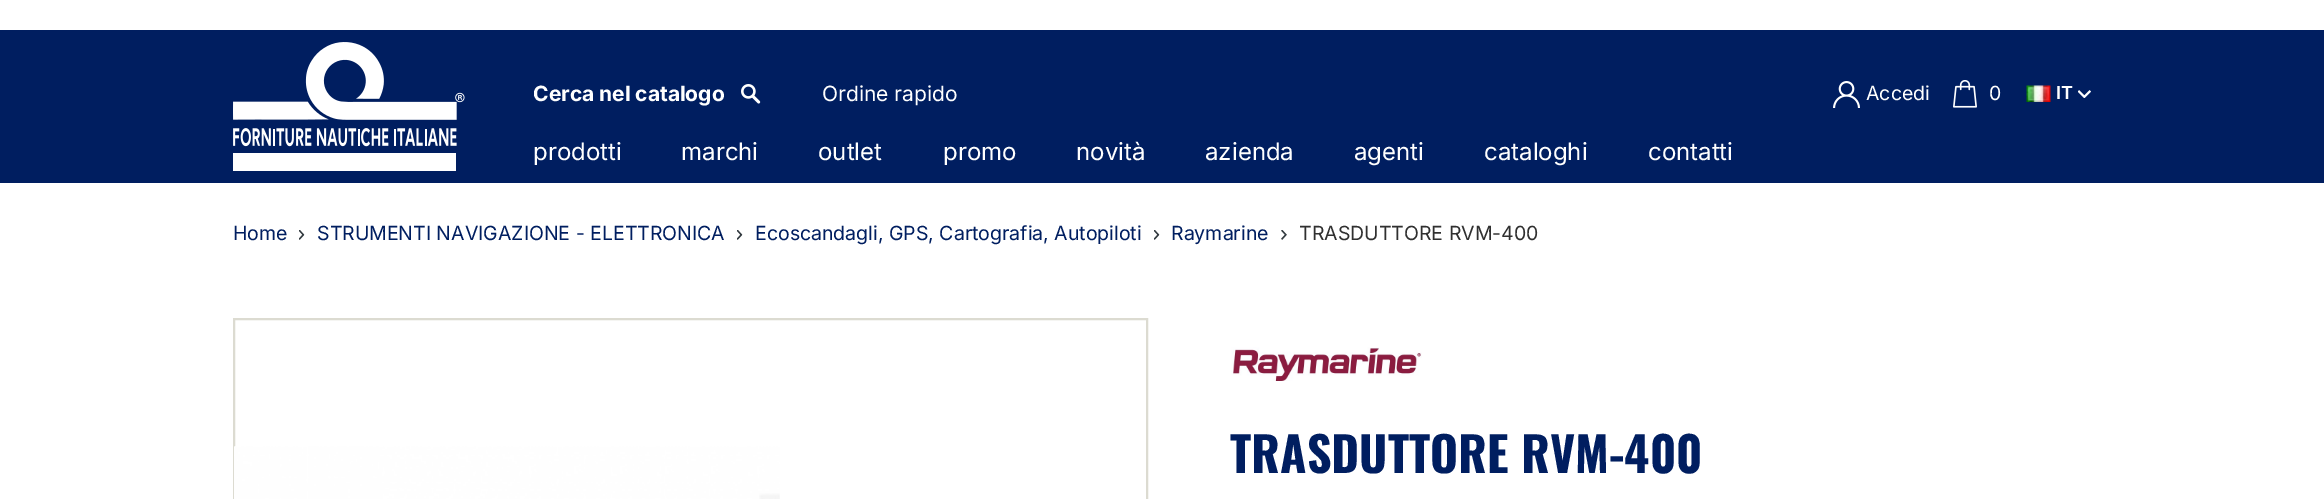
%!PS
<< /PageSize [2324 499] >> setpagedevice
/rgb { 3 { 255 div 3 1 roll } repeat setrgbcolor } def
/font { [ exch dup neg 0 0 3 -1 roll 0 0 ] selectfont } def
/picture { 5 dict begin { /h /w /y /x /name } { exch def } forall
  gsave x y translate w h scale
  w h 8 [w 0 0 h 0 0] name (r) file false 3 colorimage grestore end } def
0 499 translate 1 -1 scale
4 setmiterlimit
255 255 255 rgb
0 0 2324 499 rectfill
0 30 96 rgb
0 30 2324 153 rectfill
(img/1.rgb) 233 42 232 129 picture
(img/2.rgb) 741 84 20 20 picture
(img/3.rgb) 1833 81 27 27 picture
(img/4.rgb) 1953 80 24 28 picture
(img/5.rgb) 2026 85 25 17 picture
(img/6.rgb) 2078 90 13 8 picture
(img/7.rgb) 299 230 6 10 picture
(img/7.rgb) 737 230 6 10 picture
(img/7.rgb) 1154 230 6 10 picture
(img/8.rgb) 1281 230 6 10 picture
220 219 209 rgb
2 setlinewidth
234 319 913 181 rectstroke
(img/9.rgb) 234 446 546 53 picture
(img/10.rgb) 1231 347 191 34 picture
/Inter-Bold 21 font
255 255 255 rgb
533 101 moveto (Cerca nel catalogo) show
/Inter-Regular 21 font
822 101 moveto (Ordine rapido) show
/Inter-Regular 19.5 font
1866 100 moveto (Accedi) show
1989 100 moveto (0) show
/Inter-Bold 18 font
2056 99 moveto (IT) show
/Inter-Regular 24 font
[
  [(prodotti) 533 160]
  [(marchi) 681 160]
  [(outlet) 818 160]
  [(promo) 943 160]
  [(novità) 1076 160]
  [(azienda) 1205 160]
  [(agenti) 1354 160]
  [(cataloghi) 1484 160]
  [(contatti) 1648 160]
] { aload pop moveto show } forall
/Inter-Regular 19.5 font
0 30 96 rgb
[
  [(Home) 233 240]
  [(STRUMENTI NAVIGAZIONE - ELETTRONICA) 317 240]
  [(Ecoscandagli, GPS, Cartografia, Autopiloti) 755 240]
  [(Raymarine) 1171 240]
] { aload pop moveto show } forall
48 48 48 rgb
1299 240 moveto (TRASDUTTORE RVM-400) show
/Oswald-Bold 48 font
0 30 96 rgb
1230 473 moveto (TRASDUTTORE RVM-400) show
showpage
